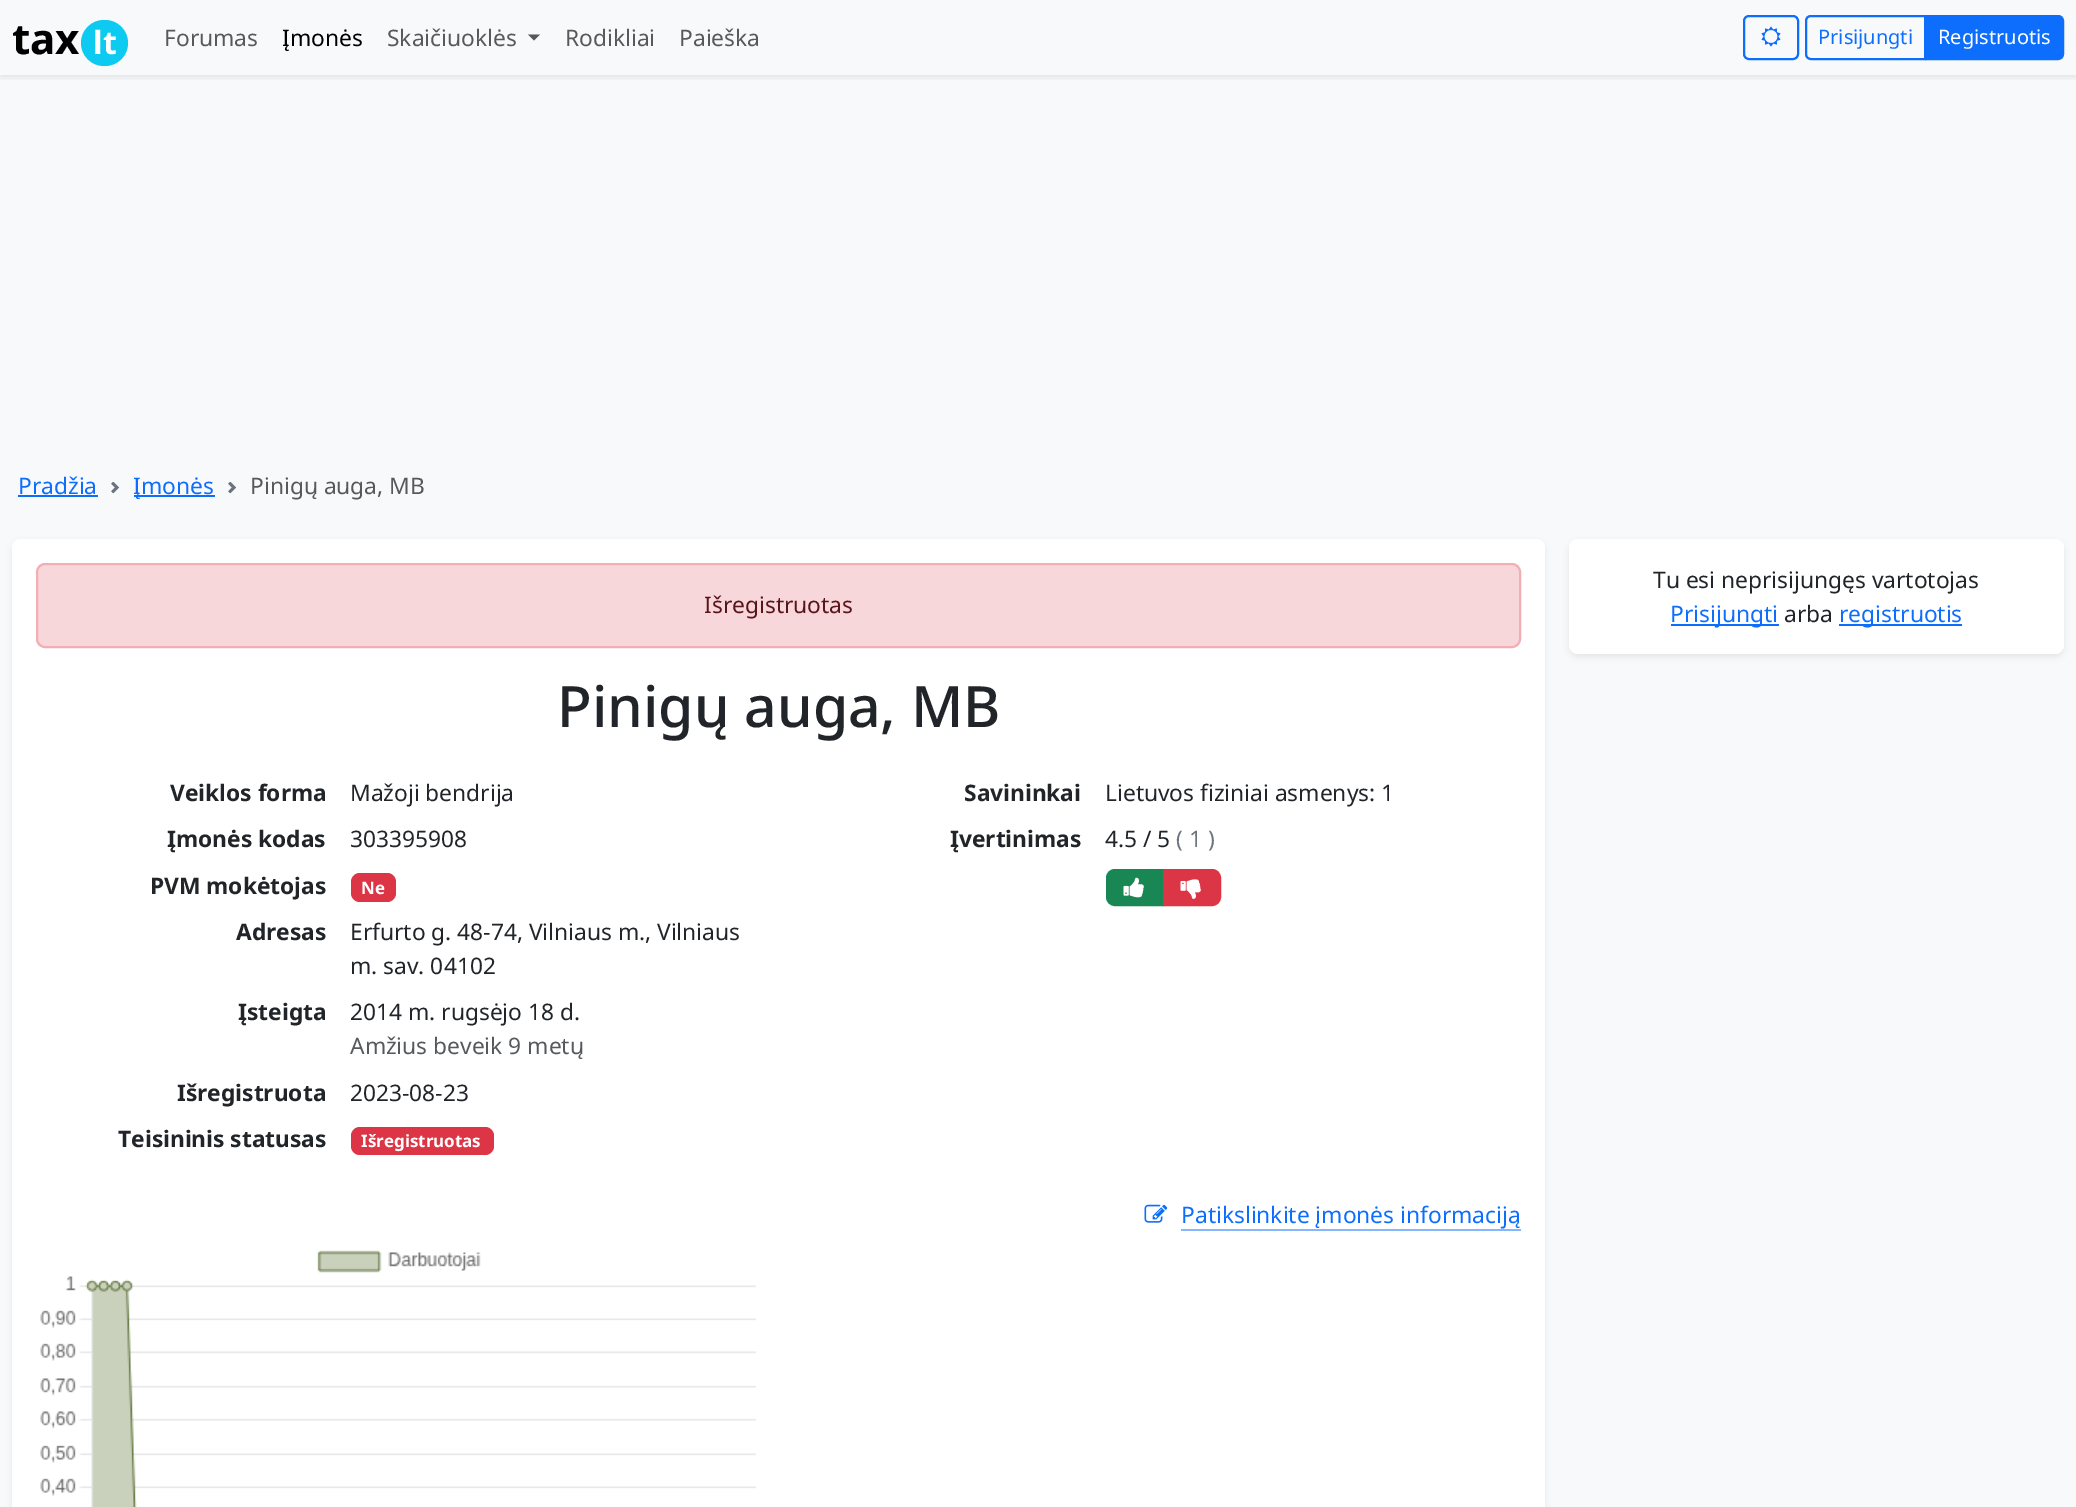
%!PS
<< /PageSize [2076 1507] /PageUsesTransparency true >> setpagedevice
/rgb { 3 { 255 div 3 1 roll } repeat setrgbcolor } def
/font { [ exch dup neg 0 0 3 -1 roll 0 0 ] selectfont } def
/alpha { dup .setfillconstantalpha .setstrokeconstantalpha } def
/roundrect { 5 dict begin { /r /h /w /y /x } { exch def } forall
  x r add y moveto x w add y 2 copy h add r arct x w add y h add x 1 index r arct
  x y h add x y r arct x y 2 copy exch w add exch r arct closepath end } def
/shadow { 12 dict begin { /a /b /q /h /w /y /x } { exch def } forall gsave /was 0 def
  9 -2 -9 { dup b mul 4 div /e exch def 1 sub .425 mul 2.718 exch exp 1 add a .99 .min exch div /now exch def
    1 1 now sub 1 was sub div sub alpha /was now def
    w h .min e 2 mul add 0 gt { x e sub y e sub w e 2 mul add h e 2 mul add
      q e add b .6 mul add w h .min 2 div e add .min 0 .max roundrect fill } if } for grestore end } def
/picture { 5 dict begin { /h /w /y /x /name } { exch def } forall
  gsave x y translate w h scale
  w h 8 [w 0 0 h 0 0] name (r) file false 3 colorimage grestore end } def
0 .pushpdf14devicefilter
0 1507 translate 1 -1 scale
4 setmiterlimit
248 249 250 rgb
0 0 2076 1507 rectfill
gsave
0 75 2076 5 rectclip
0 0 0 rgb
0 3 2076 75 0 3 0.07 shadow
grestore
13 202 240 rgb
81 20 47 46 23 roundrect fill
87 87 88 rgb
528 34.5 moveto 540 34.5 lineto 534 40.5 lineto closepath fill
13 110 253 rgb
2 setlinewidth
1744 16 54 43 5 roundrect stroke
(img/1.rgb) 1761 26 20 21 picture
1811 16 moveto 1925 16 lineto 1925 59 lineto 1811 59 lineto 1808 59 1806 57 1806 54 curveto 1806 21 lineto 1806 18 1808 16 1811 16 curveto closepath stroke
1926 16 moveto 2058 16 lineto 2061 16 2063 18 2063 21 curveto 2063 54 lineto 2063 57 2061 59 2058 59 curveto 1926 59 lineto closepath gsave fill grestore
stroke
18 495 80 2 rectfill
(img/2.rgb) 111 482 9 12 picture
134 495 81 2 rectfill
(img/2.rgb) 228 482 9 12 picture
0 0 0 rgb
12 542 1533 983 9 3 0.07 shadow
255 255 255 rgb
12 539 1533 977 9 roundrect fill
248 215 218 rgb
37 564 1483 83 8 roundrect gsave fill grestore
241 174 181 rgb
stroke
220 53 69 rgb
351 873 45 29 9 roundrect fill
351 1127 143 28 9 roundrect fill
25 135 84 rgb
1115 870 moveto 1163 870 lineto 1163 905 lineto 1115 905 lineto 1110.5 905 1107 901.5 1107 897 curveto 1107 878 lineto 1107 873.5 1110.5 870 1115 870 curveto closepath gsave fill grestore
stroke
(img/3.rgb) 1123 877 21 21 picture
220 53 69 rgb
1164 870 moveto 1212 870 lineto 1216.5 870 1220 873.5 1220 878 curveto 1220 897 lineto 1220 901.5 1216.5 905 1212 905 curveto 1164 905 lineto closepath gsave fill grestore
stroke
(img/4.rgb) 1180 879 21 20 picture
(img/5.rgb) 1144 1204 24 19 picture
134 183 254 rgb
1181 1229 340 2 rectfill
(img/6.rgb) 40 1250 716 257 picture
0 0 0 rgb
1569 542 495 115 9 3 0.07 shadow
255 255 255 rgb
1569 539 495 115 9 roundrect fill
13 110 253 rgb
1671 624 108 2 rectfill
1839 624 123 2 rectfill
/NotoSans-Bold 42 font
0 0 0 rgb
12 54 moveto (tax) show
/NotoSans-Bold 32 font
255 255 255 rgb
93 54 moveto (lt) show
/NotoSans-Regular 22.75 font
87 90 93 rgb
164 46 moveto (Forumas) show
0 0 0 rgb
282 46 moveto (Įmonės) show
87 90 93 rgb
[
  [(Skaičiuoklės) 387 46]
  [(Rodikliai) 565 46]
  [(Paieška) 679 46]
] { aload pop moveto show } forall
/NotoSans-Regular 20 font
13 110 253 rgb
1818 44 moveto (Prisijungti) show
255 255 255 rgb
1938 44 moveto (Registruotis) show
/NotoSans-Regular 22.75 font
13 110 253 rgb
18 494 moveto (Pradžia) show
133 494 moveto (Įmonės) show
87 90 93 rgb
250 494 moveto (Pinigų auga, MB) show
88 21 28 rgb
704 613 moveto (Išregistruotas) show
/NotoSans-Medium 57 font
33 37 41 rgb
557 727 moveto (Pinigų auga, MB) show
/NotoSans-Bold 22.75 font
170 801 moveto (Veiklos forma) show
/NotoSans-Regular 22.75 font
350 801 moveto (Mažoji bendrija) show
/NotoSans-Bold 22.75 font
167 847 moveto (Įmonės kodas) show
/NotoSans-Regular 22.75 font
350 847 moveto (303395908) show
/NotoSans-Bold 22.75 font
150 894 moveto (PVM mokėtojas) show
/NotoSans-Bold 17 font
255 255 255 rgb
361 894 moveto (Ne) show
/NotoSans-Bold 22.75 font
33 37 41 rgb
236 940 moveto (Adresas) show
/NotoSans-Regular 22.75 font
350 940 moveto (Erfurto g. 48-74, Vilniaus m., Vilniaus) show
350 974 moveto (m. sav. 04102) show
/NotoSans-Bold 22.75 font
238 1020 moveto (Įsteigta) show
/NotoSans-Regular 22.75 font
350 1020 moveto (2014 m. rugsėjo 18 d.) show
87 90 93 rgb
350 1054 moveto (Amžius beveik 9 metų) show
/NotoSans-Bold 22.75 font
33 37 41 rgb
177 1101 moveto (Išregistruota) show
/NotoSans-Regular 22.75 font
350 1101 moveto (2023-08-23) show
/NotoSans-Bold 22.75 font
118 1147 moveto (Teisininis statusas) show
/NotoSans-Bold 17 font
255 255 255 rgb
361 1147 moveto (Išregistruotas) show
/NotoSans-Bold 22.75 font
33 37 41 rgb
964 801 moveto (Savininkai) show
/NotoSans-Regular 22.75 font
1105 801 moveto (Lietuvos fiziniai asmenys: 1) show
/NotoSans-Bold 22.75 font
950 847 moveto (Įvertinimas) show
/NotoSans-Regular 22.75 font
1105 847 moveto (4.5 / 5) show
108 117 125 rgb
1176 847 moveto (\( 1 \)) show
13 110 253 rgb
1181 1223 moveto (Patikslinkite įmonės informaciją) show
33 37 41 rgb
1653 588 moveto (Tu esi neprisijungęs vartotojas) show
13 110 253 rgb
1670 622 moveto (Prisijungti) show
33 37 41 rgb
1784 622 moveto (arba) show
13 110 253 rgb
1839 622 moveto (registruotis) show
.poppdf14devicefilter showpage
